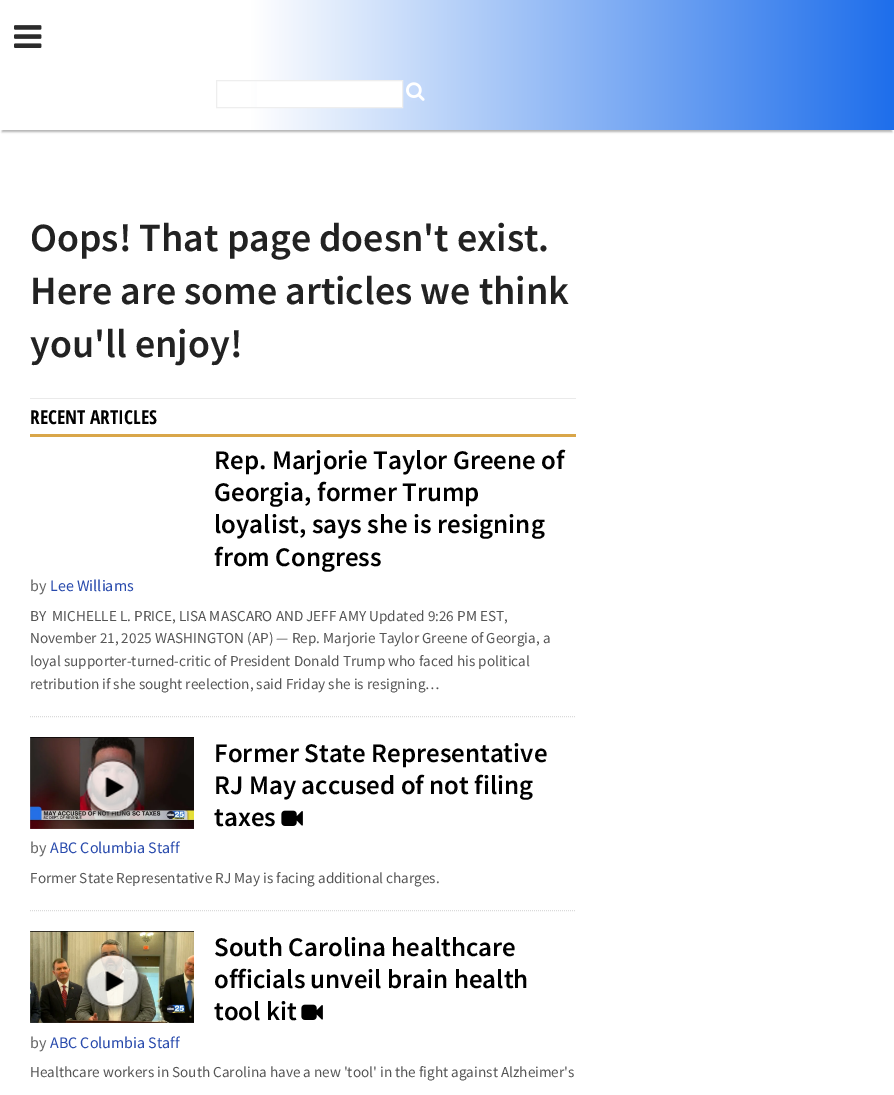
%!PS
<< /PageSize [894 1095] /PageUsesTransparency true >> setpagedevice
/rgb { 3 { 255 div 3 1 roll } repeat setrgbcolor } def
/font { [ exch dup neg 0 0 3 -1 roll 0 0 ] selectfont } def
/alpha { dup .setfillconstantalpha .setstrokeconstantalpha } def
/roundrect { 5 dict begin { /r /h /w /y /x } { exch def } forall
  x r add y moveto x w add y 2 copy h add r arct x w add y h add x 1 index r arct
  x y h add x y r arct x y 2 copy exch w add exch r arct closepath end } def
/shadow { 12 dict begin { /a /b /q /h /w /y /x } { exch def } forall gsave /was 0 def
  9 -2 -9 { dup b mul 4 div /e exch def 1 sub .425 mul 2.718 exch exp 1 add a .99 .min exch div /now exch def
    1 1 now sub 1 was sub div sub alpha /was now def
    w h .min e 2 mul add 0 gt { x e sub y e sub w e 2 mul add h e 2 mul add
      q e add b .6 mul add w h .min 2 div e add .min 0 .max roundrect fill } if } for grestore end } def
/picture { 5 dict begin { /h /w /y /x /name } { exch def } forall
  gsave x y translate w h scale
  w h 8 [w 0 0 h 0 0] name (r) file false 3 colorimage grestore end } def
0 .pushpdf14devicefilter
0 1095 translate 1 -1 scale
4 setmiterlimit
255 255 255 rgb
0 0 894 1095 rectfill
0 0 0 rgb
2 6 890 126 0 1 0.3 shadow
gsave 0 0 moveto 894 0 lineto 894 130 lineto 0 130 lineto closepath clip newpath
<< /ShadingType 2 /ColorSpace /DeviceRGB /Coords [0 65 894 65] /Extend [true true] /Function << /FunctionType 3 /Domain [0 1] /Functions [<< /FunctionType 2 /Domain [0 1] /C0 [1 1 1] /C1 [1 1 1] /N 1 >> << /FunctionType 2 /Domain [0 1] /C0 [1 1 1] /C1 [0.118 0.431 0.922] /N 1 >>] /Bounds [0.28] /Encode [0 1 0 1] >> >> shfill grestore
(img/1.rgb) 14 25 28 23 picture
255 255 255 rgb
257 81 145 26 rectfill
238 238 238 rgb
216.5 80.5 186 27 rectstroke
(img/2.rgb) 406 82 19 19 picture
234 234 234 rgb
30 398 546 1 rectfill
217 166 73 rgb
30 434 546 3 rectfill
218 218 218 rgb
[1 1] 0 setdash
30 716.5 moveto 576 716.5 lineto stroke
30 910.5 moveto 576 910.5 lineto stroke
(img/3.rgb) 30 737 164 92 picture
(img/4.rgb) 79 752 67 68 picture
(img/5.rgb) 281 810 22 16 picture
(img/6.rgb) 30 931 164 92 picture
(img/7.rgb) 78 946 70 70 picture
(img/5.rgb) 301 1004 22 16 picture
/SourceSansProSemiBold-SemiBold 40 font
34 34 34 rgb
[
  [(Oops! That page doesn't exist.) 30 251]
  [(Here are some articles we think) 30 304]
  [(you'll enjoy!) 30 357]
] { aload pop moveto show } forall
/OpenSansCondensed-Bold 19.25 font
0 0 0 rgb
30 424 moveto (RECENT ARTICLES) show
/SourceSansProSemiBold-SemiBold 26.9 font
[
  [(Rep. Marjorie Taylor Greene of) 214 469]
  [(Georgia, former Trump) 214 501]
  [(loyalist, says she is resigning) 214 533]
  [(from Congress) 214 566]
] { aload pop moveto show } forall
/SourceSansPro-Regular 16 font
102 102 102 rgb
30 591 moveto (by) show
40 74 172 rgb
50 591 moveto (Lee Williams) show
/SourceSansPro-Regular 15.2 font
85 85 85 rgb
[
  [(BY  MICHELLE L. PRICE, LISA MASCARO AND JEFF AMY Updated 9:26 PM EST,) 30 621]
  [(November 21, 2025 WASHINGTON \(AP\) — Rep. Marjorie Taylor Greene of Georgia, a) 30 643]
  [(loyal supporter-turned-critic of President Donald Trump who faced his political) 30 666]
  [(retribution if she sought reelection, said Friday she is resigning…) 30 689]
] { aload pop moveto show } forall
/SourceSansProSemiBold-SemiBold 26.9 font
0 0 0 rgb
[
  [(Former State Representative) 214 762]
  [(RJ May accused of not filing) 214 794]
  [(taxes) 214 826]
] { aload pop moveto show } forall
/SourceSansPro-Regular 16 font
102 102 102 rgb
30 853 moveto (by) show
40 74 172 rgb
50 853 moveto (ABC Columbia Staff) show
/SourceSansPro-Regular 15.2 font
85 85 85 rgb
30 883 moveto (Former State Representative RJ May is facing additional charges.) show
/SourceSansProSemiBold-SemiBold 26.9 font
0 0 0 rgb
[
  [(South Carolina healthcare) 214 956]
  [(officials unveil brain health) 214 988]
  [(tool kit) 214 1020]
] { aload pop moveto show } forall
/SourceSansPro-Regular 16 font
102 102 102 rgb
30 1048 moveto (by) show
40 74 172 rgb
50 1048 moveto (ABC Columbia Staff) show
/SourceSansPro-Regular 15.2 font
85 85 85 rgb
30 1077 moveto (Healthcare workers in South Carolina have a new 'tool' in the fight against Alzheimer's) show
.poppdf14devicefilter showpage
